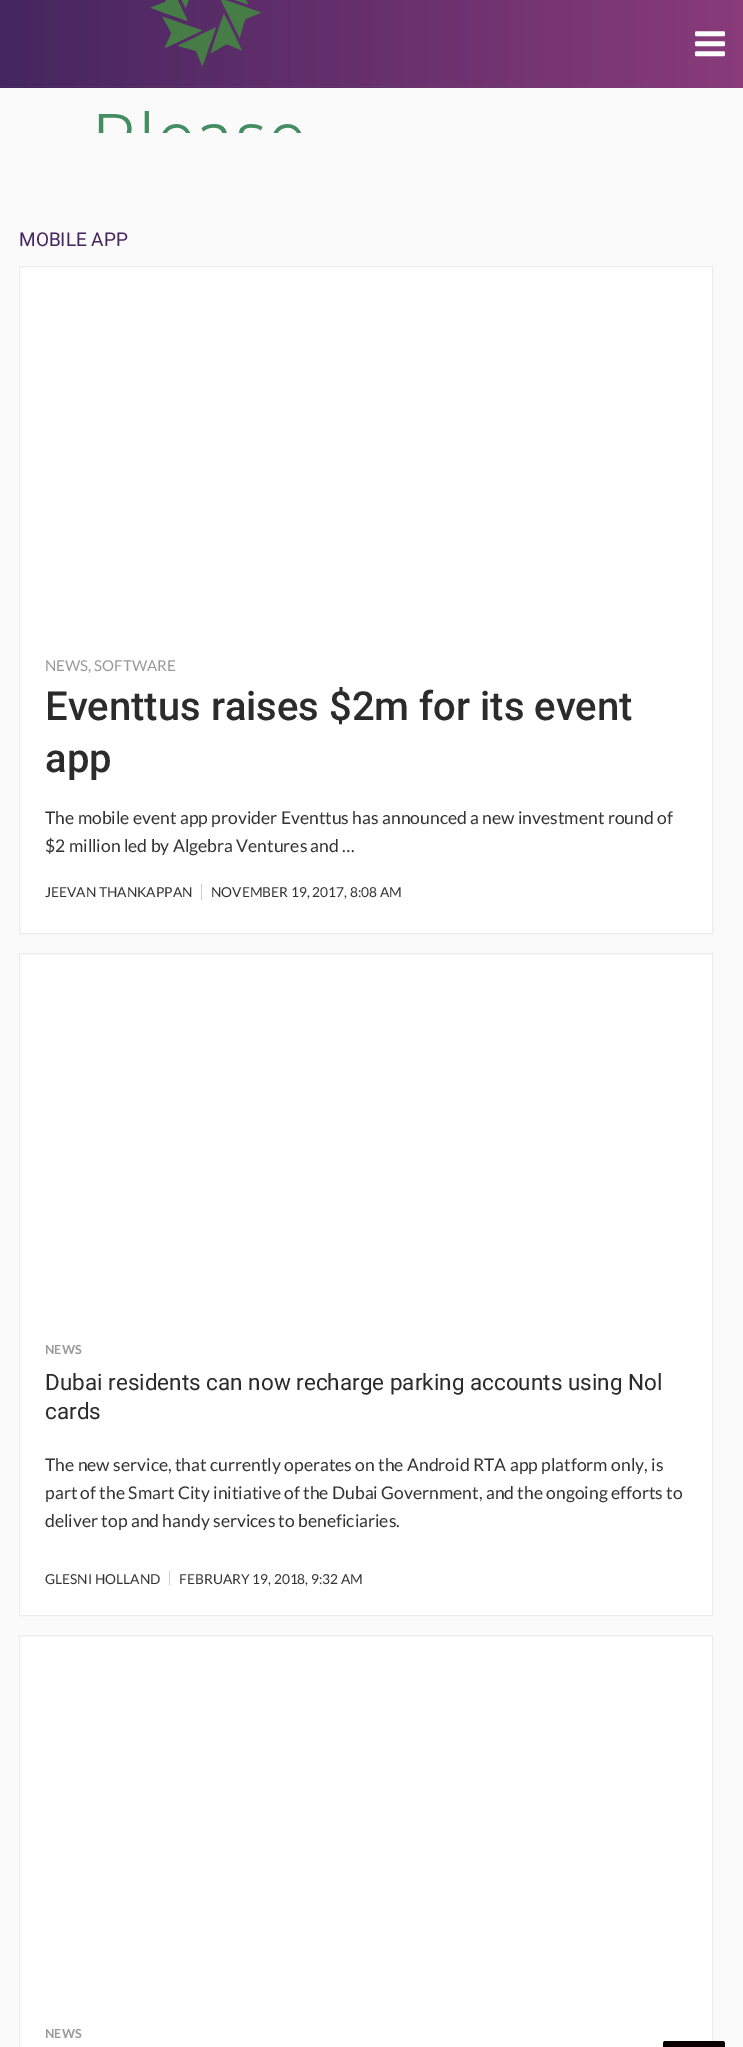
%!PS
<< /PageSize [743 2047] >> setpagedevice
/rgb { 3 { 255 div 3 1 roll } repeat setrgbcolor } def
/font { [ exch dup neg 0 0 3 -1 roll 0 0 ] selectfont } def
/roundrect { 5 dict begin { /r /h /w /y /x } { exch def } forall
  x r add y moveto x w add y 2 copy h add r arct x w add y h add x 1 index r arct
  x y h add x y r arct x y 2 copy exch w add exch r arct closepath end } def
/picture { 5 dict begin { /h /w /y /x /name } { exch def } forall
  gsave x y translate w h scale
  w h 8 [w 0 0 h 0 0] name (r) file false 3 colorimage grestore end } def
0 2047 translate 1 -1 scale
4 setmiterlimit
250 250 250 rgb
0 0 743 2047 rectfill
gsave 0 0 moveto 743 0 lineto 743 88 lineto 0 88 lineto closepath clip newpath
<< /ShadingType 2 /ColorSpace /DeviceRGB /Coords [0 43 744 43] /Extend [true true] /Function << /FunctionType 2 /Domain [0 1] /C0 [0.271 0.149 0.376] /C1 [0.537 0.231 0.478] /N 1 >> >> shfill grestore
gsave 0 86 moveto 743 86 lineto 743 87 lineto 0 87 lineto closepath clip newpath
<< /ShadingType 2 /ColorSpace /DeviceRGB /Coords [0 43 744 43] /Extend [true true] /Function << /FunctionType 2 /Domain [0 1] /C0 [0.282 0.173 0.376] /C1 [0.522 0.247 0.471] /N 1 >> >> shfill grestore
(img/1.rgb) 98 0 204 133 picture
(img/2.rgb) 695 31 30 26 picture
255 255 255 rgb
19.5 266.5 moveto 712.5 266.5 lineto 712.5 933.5 lineto 19.5 933.5 lineto closepath gsave fill grestore
236 236 236 rgb
stroke
204 204 204 rgb
201 884 1 16 rectfill
255 255 255 rgb
19.5 953.5 moveto 712.5 953.5 lineto 712.5 1615.5 lineto 19.5 1615.5 lineto closepath gsave fill grestore
236 236 236 rgb
stroke
204 204 204 rgb
169 1571 1 14 rectfill
255 255 255 rgb
19.5 1635.5 moveto 712.5 1635.5 lineto 712.5 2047.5 lineto 19.5 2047.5 lineto closepath gsave fill grestore
236 236 236 rgb
stroke
10 0 0 rgb
663 2041 62 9 2.5 roundrect fill
/Roboto-Regular 19 font
69 38 96 rgb
19 246 moveto (MOBILE APP) show
/Lato-Regular 15 font
153 153 153 rgb
45 671 moveto (NEWS, SOFTWARE) show
/Roboto-Medium 40 font
43 43 43 rgb
45 720 moveto (Eventtus raises $2m for its event) show
45 772 moveto (app) show
/Lato-Regular 17.5 font
51 51 51 rgb
45 824 moveto (The mobile event app provider Eventtus has announced a new investment round of) show
45 852 moveto ($2 million led by Algebra Ventures and …) show
/Lato-Regular 13.75 font
45 897 moveto (JEEVAN THANKAPPAN) show
211 897 moveto (NOVEMBER 19, 2017, 8:08 AM) show
/Lato-Bold 12.5 font
153 153 153 rgb
45 1354 moveto (NEWS) show
/Roboto-Regular 22.5 font
43 43 43 rgb
45 1390 moveto (Dubai residents can now recharge parking accounts using Nol) show
45 1419 moveto (cards) show
/Lato-Regular 17.5 font
51 51 51 rgb
[
  [(The new service, that currently operates on the Android RTA app platform only, is) 45 1471]
  [(part of the Smart City initiative of the Dubai Government, and the ongoing efforts to) 45 1499]
  [(deliver top and handy services to beneficiaries.) 45 1527]
] { aload pop moveto show } forall
/Lato-Regular 13.75 font
45 1584 moveto (GLESNI HOLLAND) show
179 1584 moveto (FEBRUARY 19, 2018, 9:32 AM) show
/Lato-Bold 12.5 font
153 153 153 rgb
45 2038 moveto (NEWS) show
showpage
